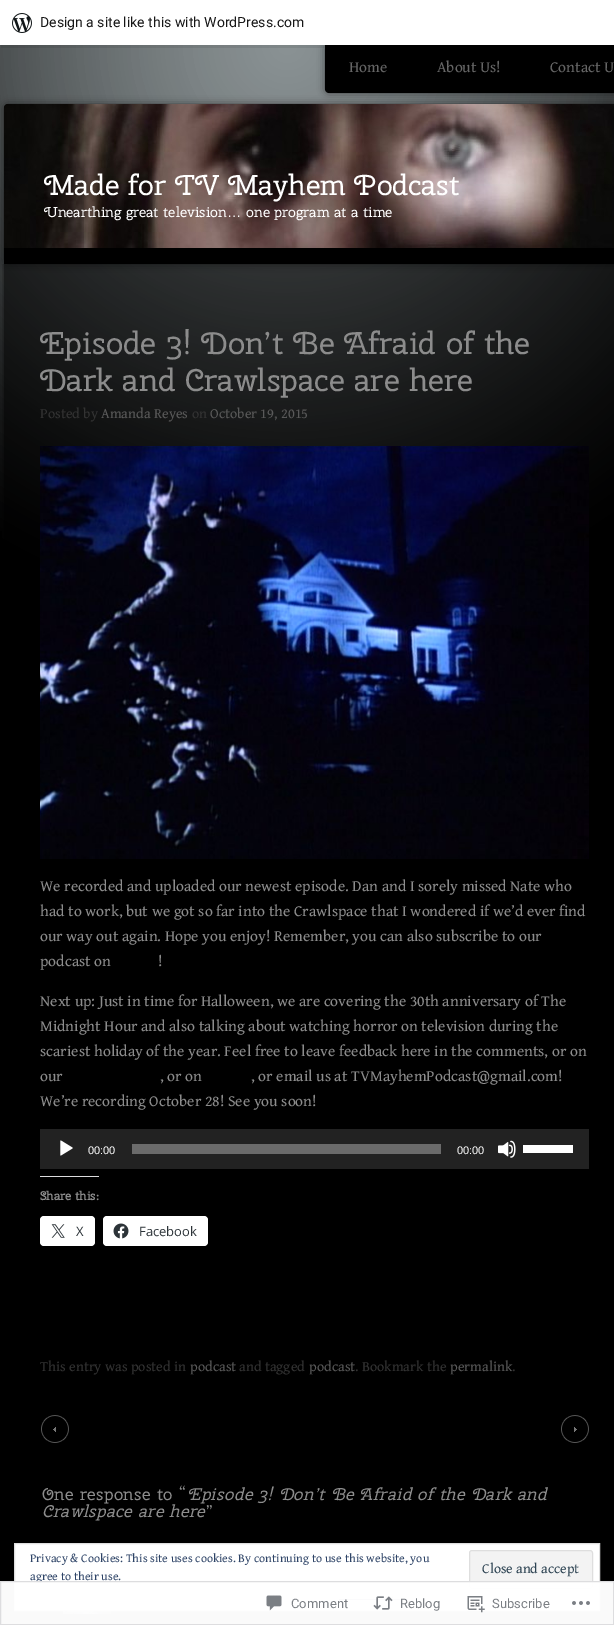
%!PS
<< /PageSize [614 1625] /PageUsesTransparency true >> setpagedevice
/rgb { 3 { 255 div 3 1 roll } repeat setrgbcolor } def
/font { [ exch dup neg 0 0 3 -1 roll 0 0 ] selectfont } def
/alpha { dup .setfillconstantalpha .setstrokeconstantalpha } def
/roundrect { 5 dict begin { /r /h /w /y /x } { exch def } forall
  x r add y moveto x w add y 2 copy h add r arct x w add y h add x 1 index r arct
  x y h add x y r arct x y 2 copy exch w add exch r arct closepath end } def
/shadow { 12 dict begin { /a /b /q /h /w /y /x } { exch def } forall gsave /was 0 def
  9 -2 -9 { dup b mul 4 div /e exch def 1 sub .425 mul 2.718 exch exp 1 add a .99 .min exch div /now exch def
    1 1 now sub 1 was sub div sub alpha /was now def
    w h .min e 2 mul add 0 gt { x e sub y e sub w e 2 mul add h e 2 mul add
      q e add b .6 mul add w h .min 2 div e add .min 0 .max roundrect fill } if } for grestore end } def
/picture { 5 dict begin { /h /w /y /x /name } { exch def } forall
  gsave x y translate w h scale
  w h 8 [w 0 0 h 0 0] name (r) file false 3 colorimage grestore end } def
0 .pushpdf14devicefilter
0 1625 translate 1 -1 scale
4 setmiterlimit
0 0 0 rgb
0 0 614 1625 rectfill
(img/2.rgb) 0 45 614 486 picture
325 45 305 48 4 4 0.5 shadow
325 45 moveto 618 45 lineto 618 89 lineto 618 91 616 93 614 93 curveto 329 93 lineto 327 93 325 91 325 89 curveto closepath fill
0.08 alpha
1 45 moveto 1 48 lineto 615 48 lineto 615 3 lineto 614 3 lineto 614 45 lineto closepath fill
1 alpha
255 255 255 rgb
0 0 614 45 rectfill
(img/1.rgb) 12 13 20 20 picture
(img/4.rgb) 2 264 612 313 picture
0 0 0 rgb
4 104 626 160 4 4 0.5 shadow
8 104 moveto 614 104 lineto 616 104 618 106 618 108 curveto 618 264 lineto 4 264 lineto 4 108 lineto 4 106 6 104 8 104 curveto closepath fill
(img/3.rgb) 4 104 610 144 picture
(img/5.rgb) 40 446 549 413 picture
34 34 34 rgb
40 1129 549 40 rectfill
(img/6.rgb) 60 1140 13 16 picture
107 107 107 rgb
132 1144 309 10 rectfill
(img/7.rgb) 498 1140 18 18 picture
255 255 255 rgb
523 1145 50 8 rectfill
220 220 222 rgb
40 1176 59 1 rectfill
255 255 255 rgb
40 1216 55 30 4 roundrect fill
(img/8.rgb) 51 1224 14 14 picture
103 1216 105 30 4 roundrect fill
(img/9.rgb) 113 1223 16 16 picture
(img/10.rgb) 41 1415 28 28 picture
(img/11.rgb) 561 1415 28 28 picture
(img/12.rgb) 63 1611 48 3 picture
14.5 1543.5 moveto 599.5 1543.5 lineto 599.5 1610.5 lineto 14.5 1610.5 lineto closepath gsave fill grestore
222 222 222 rgb
stroke
243 243 243 rgb
469.5 1550.5 123 38 2.5 roundrect gsave fill grestore
222 222 222 rgb
stroke
46 68 103 rgb
339 1599 67 1 rectfill
/Roboto-Regular 14 font
23 23 23 rgb
40 27 moveto (Design a site like this with WordPress.com) show
/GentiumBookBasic-Regular 15.6 font
102 102 102 rgb
[
  [(Home) 349 72]
  [(About Us!) 437 72]
  [(Contact U) 550 72]
] { aload pop moveto show } forall
/CherrySwash-Regular 28.6 font
255 255 255 rgb
44 195 moveto (Made for TV Mayhem Podcast) show
/CherrySwash-Regular 14.25 font
44 217 moveto (Unearthing great television) show
/LiberationSans-Regular 14.25 font
227 217 moveto (…) show
/CherrySwash-Regular 14.25 font
246 217 moveto (one program at a time) show
/CherrySwash-Regular 31.25 font
140 140 140 rgb
40 354 moveto (Episode 3! Don’t Be Afraid of the) show
40 391 moveto (Dark and Crawlspace are here) show
/GentiumBookBasic-Regular 14.25 font
51 51 51 rgb
40 418 moveto (Posted by) show
89 89 89 rgb
101 418 moveto (Amanda Reyes) show
51 51 51 rgb
192 418 moveto (on) show
89 89 89 rgb
210 418 moveto (October 19, 2015) show
/GentiumBookBasic-Regular 15.6 font
140 140 140 rgb
[
  [(We recorded and uploaded our newest episode. Dan and I sorely missed Nate who) 40 891]
  [(had to work, but we got so far into the Crawlspace that I wondered if we’d ever find) 40 916]
  [(our way out again. Hope you enjoy! Remember, you can also subscribe to our) 40 941]
  [(podcast on) 40 966]
  [(!) 158 966]
  [(Next up: Just in time for Halloween, we are covering the 30th anniversary of The) 40 1006]
  [(Midnight Hour and also talking about watching horror on television during the) 40 1031]
  [(scariest holiday of the year. Feel free to leave feedback here in the comments, or on) 40 1056]
  [(our) 40 1081]
  [(, or on) 160 1081]
  [(, or email us at TVMayhemPodcast@gmail.com!) 251 1081]
  [(We’re recording October 28! See you soon!) 40 1106]
] { aload pop moveto show } forall
/LiberationSans-Regular 11 font
255 255 255 rgb
88 1154 moveto (00:00) show
457 1154 moveto (00:00) show
/CherrySwash-Bold 12 font
140 140 140 rgb
40 1200 moveto (Share this:) show
/OpenSans-Regular 13 font
44 51 56 rgb
76 1236 moveto (X) show
139 1236 moveto (Facebook) show
/GentiumBookBasic-Regular 14.25 font
51 51 51 rgb
40 1371 moveto (This entry was posted in) show
89 89 89 rgb
190 1371 moveto (podcast) show
51 51 51 rgb
239 1371 moveto (and tagged) show
89 89 89 rgb
309 1371 moveto (podcast) show
51 51 51 rgb
355 1371 moveto (. Bookmark the) show
89 89 89 rgb
450 1371 moveto (permalink) show
51 51 51 rgb
512 1371 moveto (.) show
/CherrySwash-Regular 16.9 font
140 140 140 rgb
42 1500 moveto 0.4 0 (One response to “) ashow
/CherrySwash-Italic 16.9 font
187 1500 moveto 0.4 0 (Episode 3! Don’t Be Afraid of the Dark and) ashow
42 1517 moveto 0.4 0 (Crawlspace are here) ashow
/CherrySwash-Regular 16.9 font
206 1517 moveto 0.4 0 (”) ashow
/GentiumBookBasic-Regular 12 font
46 68 103 rgb
30 1562 moveto (Privacy & Cookies: This site uses cookies. By continuing to use this website, you) show
30 1580 moveto (agree to their use.) show
/GentiumBookBasic-Regular 14 font
46 68 83 rgb
482 1573 moveto (Close and accept) show
0.98 alpha
255 255 255 rgb
0 1581 614 44 rectfill
220 220 222 rgb
0.5 1581.5 613 43 rectstroke
1 alpha
(img/13.rgb) 266 1595 16 16 picture
/Roboto-Regular 13 font
123 127 132 rgb
291 1608 moveto (Comment) show
(img/14.rgb) 373 1596 20 14 picture
400 1608 moveto (Reblog) show
(img/15.rgb) 467 1596 18 17 picture
492 1608 moveto (Subscribe) show
(img/16.rgb) 572 1601 18 4 picture
.poppdf14devicefilter showpage
